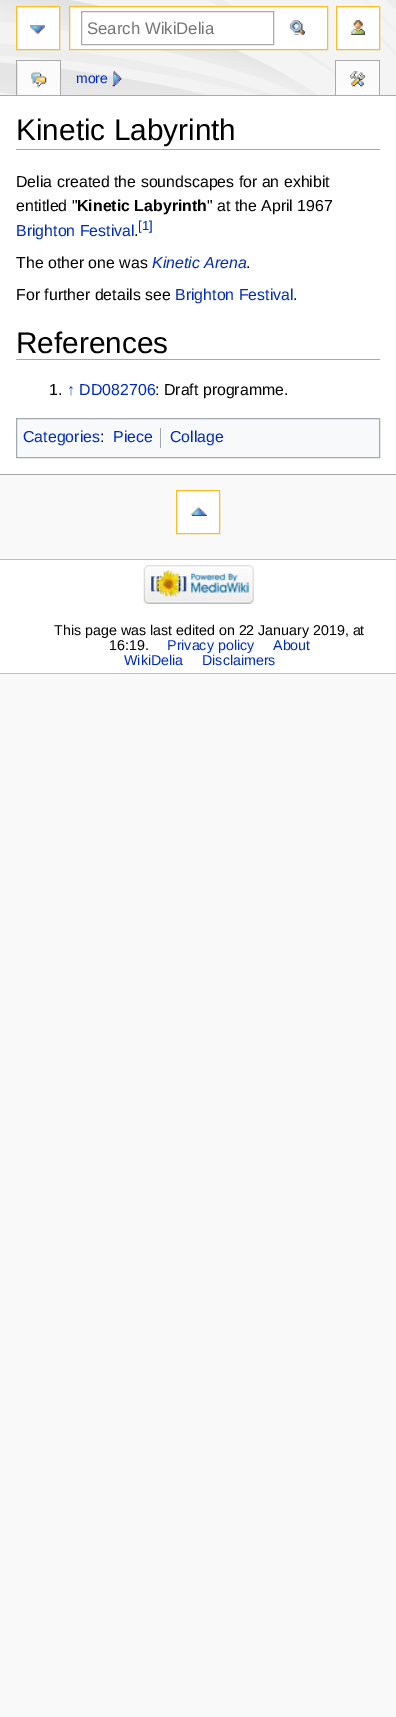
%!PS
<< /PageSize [396 1717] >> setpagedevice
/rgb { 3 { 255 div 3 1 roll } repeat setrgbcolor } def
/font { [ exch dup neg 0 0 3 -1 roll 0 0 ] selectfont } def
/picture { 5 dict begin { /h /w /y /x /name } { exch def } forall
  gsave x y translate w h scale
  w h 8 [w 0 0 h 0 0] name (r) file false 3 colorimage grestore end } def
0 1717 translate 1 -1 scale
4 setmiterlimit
249 249 249 rgb
0 0 396 1717 rectfill
(img/1.rgb) 0 0 396 95 picture
255 255 255 rgb
17 7 42 42 rectfill
(img/2.rgb) 30 25 15 9 picture
250 189 35 rgb
16.5 6.5 43 43 rectstroke
255 255 255 rgb
69.5 6.5 moveto 327.5 6.5 lineto 327.5 49.5 lineto 69.5 49.5 lineto closepath gsave fill grestore
250 189 35 rgb
stroke
170 170 170 rgb
81.5 11.5 192 33 rectstroke
(img/3.rgb) 290 20 15 15 picture
255 255 255 rgb
337 7 42 42 rectfill
(img/4.rgb) 351 20 14 15 picture
250 189 35 rgb
336.5 6.5 43 43 rectstroke
[
  [16 60 45 1 170 170 170]
  [60 60 1 36 170 170 170]
  [16 60 1 36 170 170 170]
  [18 61 42 34 251 251 251]
] { aload pop rgb rectfill } forall
(img/5.rgb) 31 72 16 16 picture
(img/6.rgb) 112 71 10 16 picture
[
  [335 60 45 1 170 170 170]
  [379 60 1 36 170 170 170]
  [335 60 1 36 170 170 170]
  [336 61 43 34 251 251 251]
] { aload pop rgb rectfill } forall
(img/7.rgb) 350 71 15 16 picture
255 255 255 rgb
177 491 42 42 rectfill
(img/8.rgb) 191 507 16 9 picture
250 189 35 rgb
176.5 490.5 43 43 rectstroke
[
  [0 96 396 378 255 255 255]
  [0 95 396 1 170 170 170]
  [0 474 396 1 170 170 170]
  [16 149 364 1 162 169 177]
  [16 359 364 1 162 169 177]
] { aload pop rgb rectfill } forall
248 249 250 rgb
16.5 418.5 moveto 379.5 418.5 lineto 379.5 457.5 lineto 16.5 457.5 lineto closepath gsave fill grestore
162 169 177 rgb
stroke
[
  [160 428 1 20 162 169 177]
  [0 560 396 113 255 255 255]
  [0 559 396 1 250 189 35]
  [0 673 396 1 250 189 35]
] { aload pop rgb rectfill } forall
(img/9.rgb) 143 565 111 39 picture
/LiberationSans-Regular 16.75 font
117 117 117 rgb
87 34 moveto (Search WikiDelia) show
/LiberationSans-Regular 14 font
0 43 184 rgb
76 83 moveto (more) show
/LiberationSans-Regular 29.75 font
0 0 0 rgb
16 140 moveto (Kinetic Labyrinth) show
/LiberationSans-Regular 15.9 font
16 187 moveto (Delia created the soundscapes for an exhibit) show
16 211 moveto (entitled ") show
/LiberationSans-Bold 15.9 font
77 211 moveto (Kinetic Labyrinth) show
/LiberationSans-Regular 15.9 font
207 211 moveto (" at the April 1967) show
0 43 184 rgb
16 236 moveto (Brighton Festival) show
0 0 0 rgb
134 236 moveto (.) show
/LiberationSans-Regular 13 font
0 43 184 rgb
138 230 moveto ([1]) show
/LiberationSans-Regular 15.9 font
0 0 0 rgb
16 268 moveto (The other one was) show
/LiberationSans-Italic 15.9 font
0 43 184 rgb
152 268 moveto (Kinetic Arena) show
/LiberationSans-Regular 15.9 font
0 0 0 rgb
246 268 moveto (.) show
16 300 moveto (For further details see) show
0 43 184 rgb
175 300 moveto (Brighton Festival) show
0 0 0 rgb
293 300 moveto (.) show
/LiberationSans-Regular 29.75 font
16 353 moveto (References) show
/LiberationSans-Regular 15.9 font
49 395 moveto (1.) show
0 43 184 rgb
67 395 moveto (↑ DD082706) show
0 0 0 rgb
155 395 moveto (: Draft programme.) show
0 43 184 rgb
23 442 moveto (Categories) show
0 0 0 rgb
100 442 moveto (:) show
0 43 184 rgb
113 442 moveto (Piece) show
170 442 moveto (Collage) show
/LiberationSans-Regular 14.25 font
0 0 0 rgb
54 635 moveto (This page was last edited on 22 January 2019, at) show
109 650 moveto (16:19.) show
0 43 184 rgb
[
  [(Privacy policy) 167 650]
  [(About) 273 650]
  [(WikiDelia) 124 665]
  [(Disclaimers) 202 665]
] { aload pop moveto show } forall
showpage
